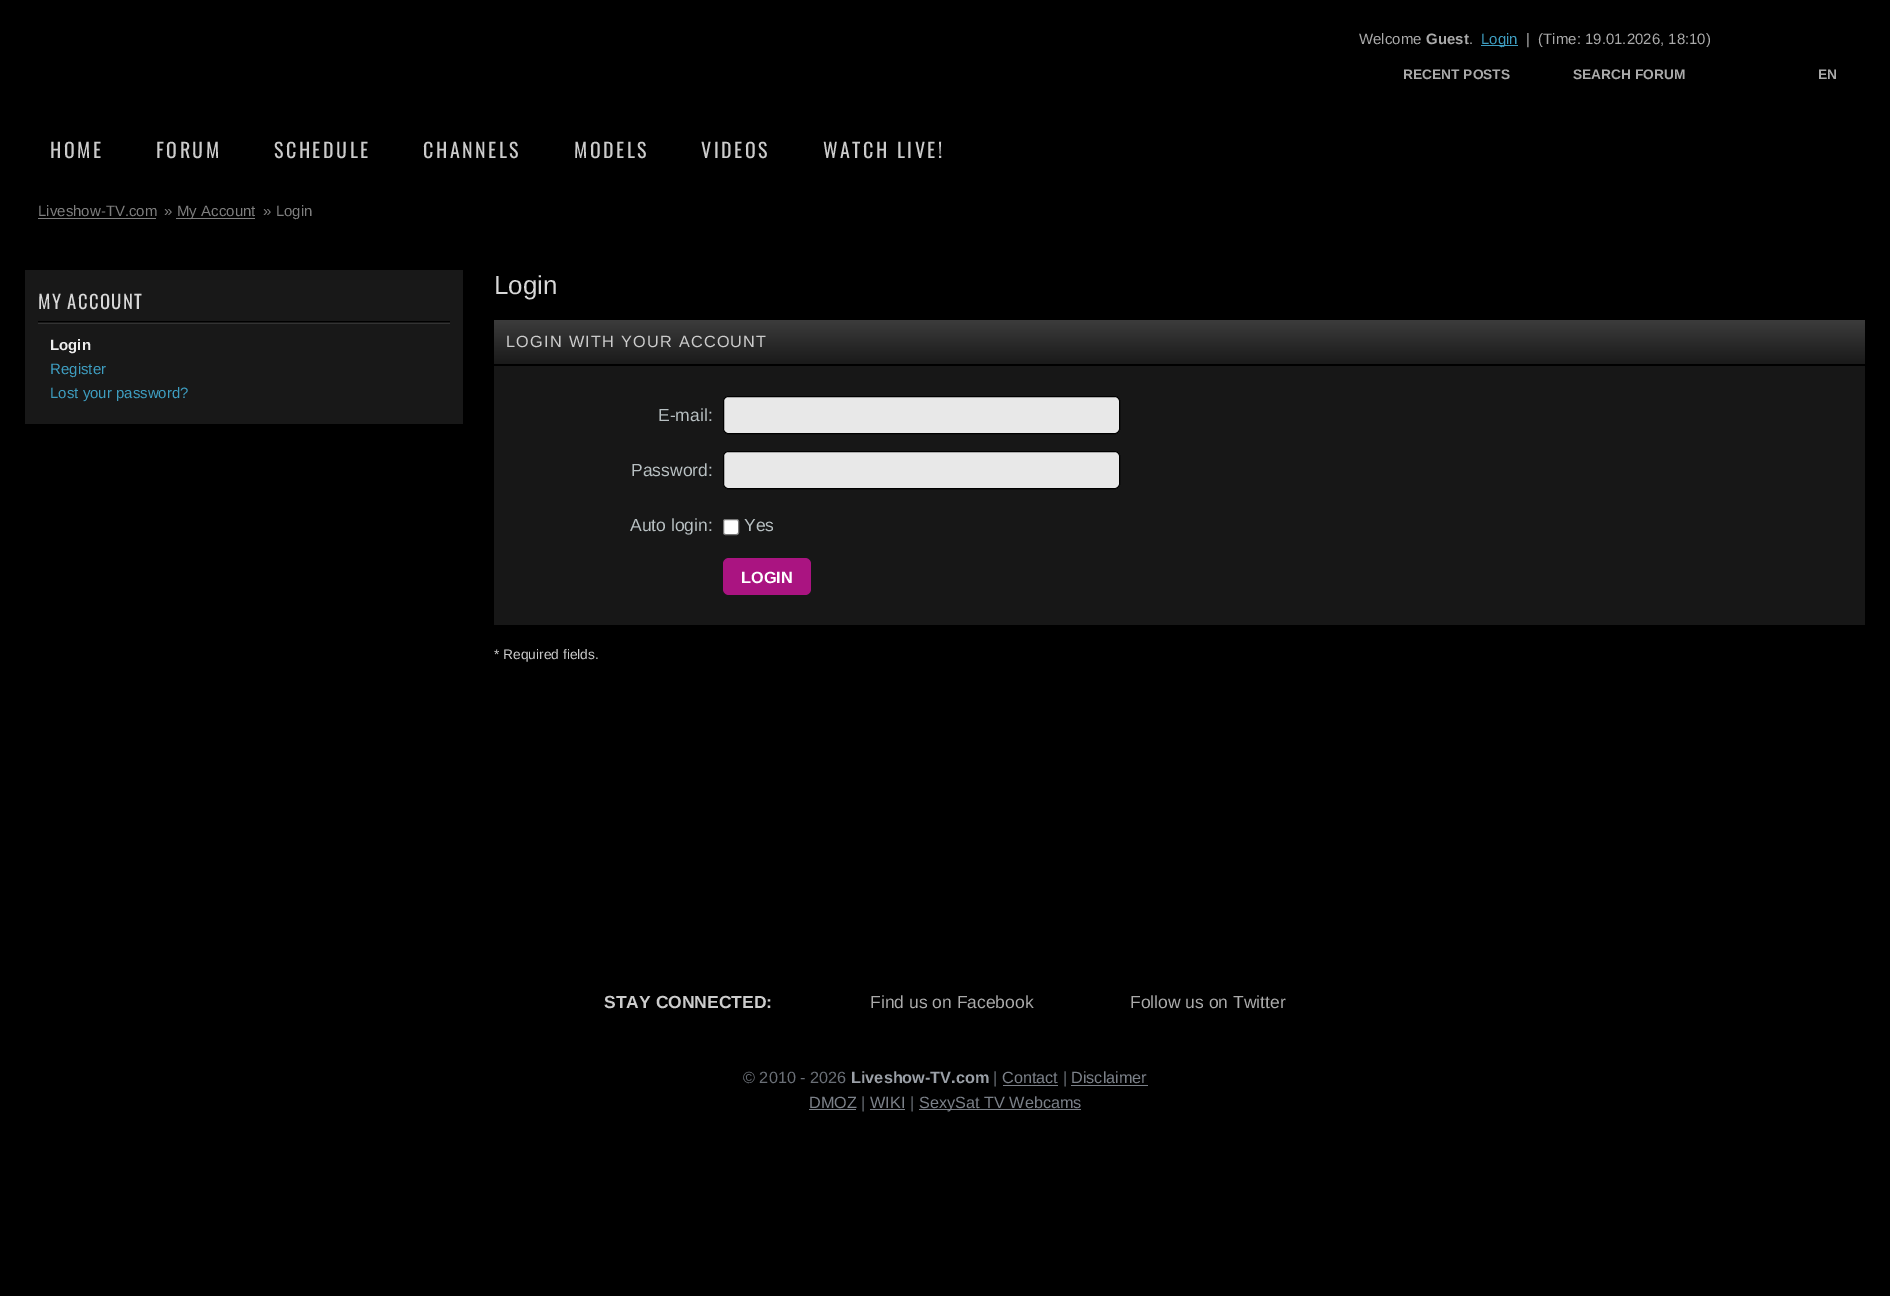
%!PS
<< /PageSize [1890 1296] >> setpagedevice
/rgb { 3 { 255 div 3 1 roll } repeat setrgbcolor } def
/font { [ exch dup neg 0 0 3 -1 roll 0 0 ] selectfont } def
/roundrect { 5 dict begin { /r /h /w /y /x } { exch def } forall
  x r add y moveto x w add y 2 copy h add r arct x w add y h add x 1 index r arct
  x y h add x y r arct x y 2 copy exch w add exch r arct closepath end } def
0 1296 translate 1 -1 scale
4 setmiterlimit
0 0 0 rgb
0 0 1890 1296 rectfill
[
  [1481 45 37 1 62 157 192]
  [38 218 118 1 126 126 126]
  [176 218 79 1 126 126 126]
  [25 270 438 154 24 24 24]
  [38 321 412 1 0 0 0]
  [38 323 412 1 51 51 51]
] { aload pop rgb rectfill } forall
gsave 494 320 moveto 1865 320 lineto 1865 364 lineto 494 364 lineto closepath clip newpath
<< /ShadingType 2 /ColorSpace /DeviceRGB /Coords [1179 320 1179 364] /Extend [true true] /Function << /FunctionType 2 /Domain [0 1] /C0 [0.235 0.235 0.235] /C1 [0.102 0.102 0.102] /N 1 >> >> shfill grestore
23 23 23 rgb
494 366 1371 259 rectfill
232 232 232 rgb
723.5 396.5 396 37 4.5 roundrect gsave fill grestore
0 0 0 rgb
stroke
232 232 232 rgb
723.5 451.5 396 37 4.5 roundrect gsave fill grestore
0 0 0 rgb
stroke
255 255 255 rgb
723.5 519.5 15 15 2 roundrect gsave fill grestore
118 118 118 rgb
stroke
170 20 129 rgb
723 558 88 37 6 roundrect fill
[
  [1003 1085 55 1 124 129 137]
  [1071 1085 77 1 124 129 137]
  [809 1109 47 1 124 129 137]
  [870 1109 35 1 124 129 137]
  [919 1109 162 1 124 129 137]
] { aload pop rgb rectfill } forall
/LiberationSans-Regular 15 font
170 170 170 rgb
1359 44 moveto (Welcome) show
/LiberationSans-Bold 15 font
1426 44 moveto (Guest) show
/LiberationSans-Regular 15 font
1469 44 moveto (.) show
62 157 192 rgb
1481 44 moveto (Login) show
170 170 170 rgb
1526 44 moveto (|  \(Time: 19.01.2026, 18:10\)) show
/LiberationSans-Bold 13.75 font
[
  [(RECENT POSTS) 1403 79]
  [(SEARCH FORUM) 1573 79]
  [(EN) 1818 79]
] { aload pop moveto show } forall
/Oswald-Regular 20 font
204 204 204 rgb
50 158 moveto 2.5 0 (HOME) ashow
156 158 moveto 2.5 0 (FORUM) ashow
274 158 moveto 2.5 0 (SCHEDULE) ashow
423 158 moveto 2.5 0 (CHANNELS) ashow
574 158 moveto 2.5 0 (MODELS) ashow
701 158 moveto 2.5 0 (VIDEOS) ashow
823 158 moveto 2.5 0 (WATCH LIVE!) ashow
/LiberationSans-Regular 15 font
126 126 126 rgb
[
  [(Liveshow-TV.com) 38 216]
  [(») 164 216]
  [(My Account) 177 216]
  [(» Login) 263 216]
] { aload pop moveto show } forall
/Oswald-Regular 18.75 font
216 216 216 rgb
38 309 moveto 1.25 0 (MY ACCOUNT) ashow
/LiberationSans-Bold 15 font
238 238 238 rgb
50 350 moveto (Login) show
/LiberationSans-Regular 15 font
62 157 192 rgb
50 374 moveto (Register) show
50 398 moveto (Lost your password?) show
/LiberationSans-Regular 26 font
216 216 216 rgb
494 294 moveto (Login) show
/LiberationSans-Regular 16.25 font
204 204 204 rgb
506 347 moveto 1.25 0 (LOGIN WITH YOUR ACCOUNT) ashow
/LiberationSans-Regular 17.5 font
184 192 194 rgb
[
  [(E-mail:) 658 421]
  [(Password:) 631 476]
  [(Auto login:) 630 531]
  [(Yes) 744 531]
] { aload pop moveto show } forall
/LiberationSans-Bold 16.25 font
255 255 255 rgb
741 583 moveto (LOGIN) show
/LiberationSans-Regular 13.75 font
204 204 204 rgb
494 659 moveto (* Required fields.) show
/LiberationSans-Bold 17.5 font
604 1008 moveto (STAY CONNECTED:) show
/LiberationSans-Regular 17.5 font
170 170 170 rgb
870 1008 moveto (Find us on Facebook) show
1130 1008 moveto (Follow us on Twitter) show
/LiberationSans-Regular 16.25 font
106 111 118 rgb
743 1083 moveto (© 2010 - 2026) show
/LiberationSans-Bold 16.25 font
155 160 167 rgb
851 1083 moveto (Liveshow-TV.com) show
/LiberationSans-Regular 16.25 font
106 111 118 rgb
993 1083 moveto (|) show
124 129 137 rgb
1002 1083 moveto (Contact) show
106 111 118 rgb
1063 1083 moveto (|) show
124 129 137 rgb
1071 1083 moveto (Disclaimer) show
809 1108 moveto (DMOZ) show
106 111 118 rgb
861 1108 moveto (|) show
124 129 137 rgb
870 1108 moveto (WIKI) show
106 111 118 rgb
910 1108 moveto (|) show
124 129 137 rgb
919 1108 moveto (SexySat TV Webcams) show
showpage
